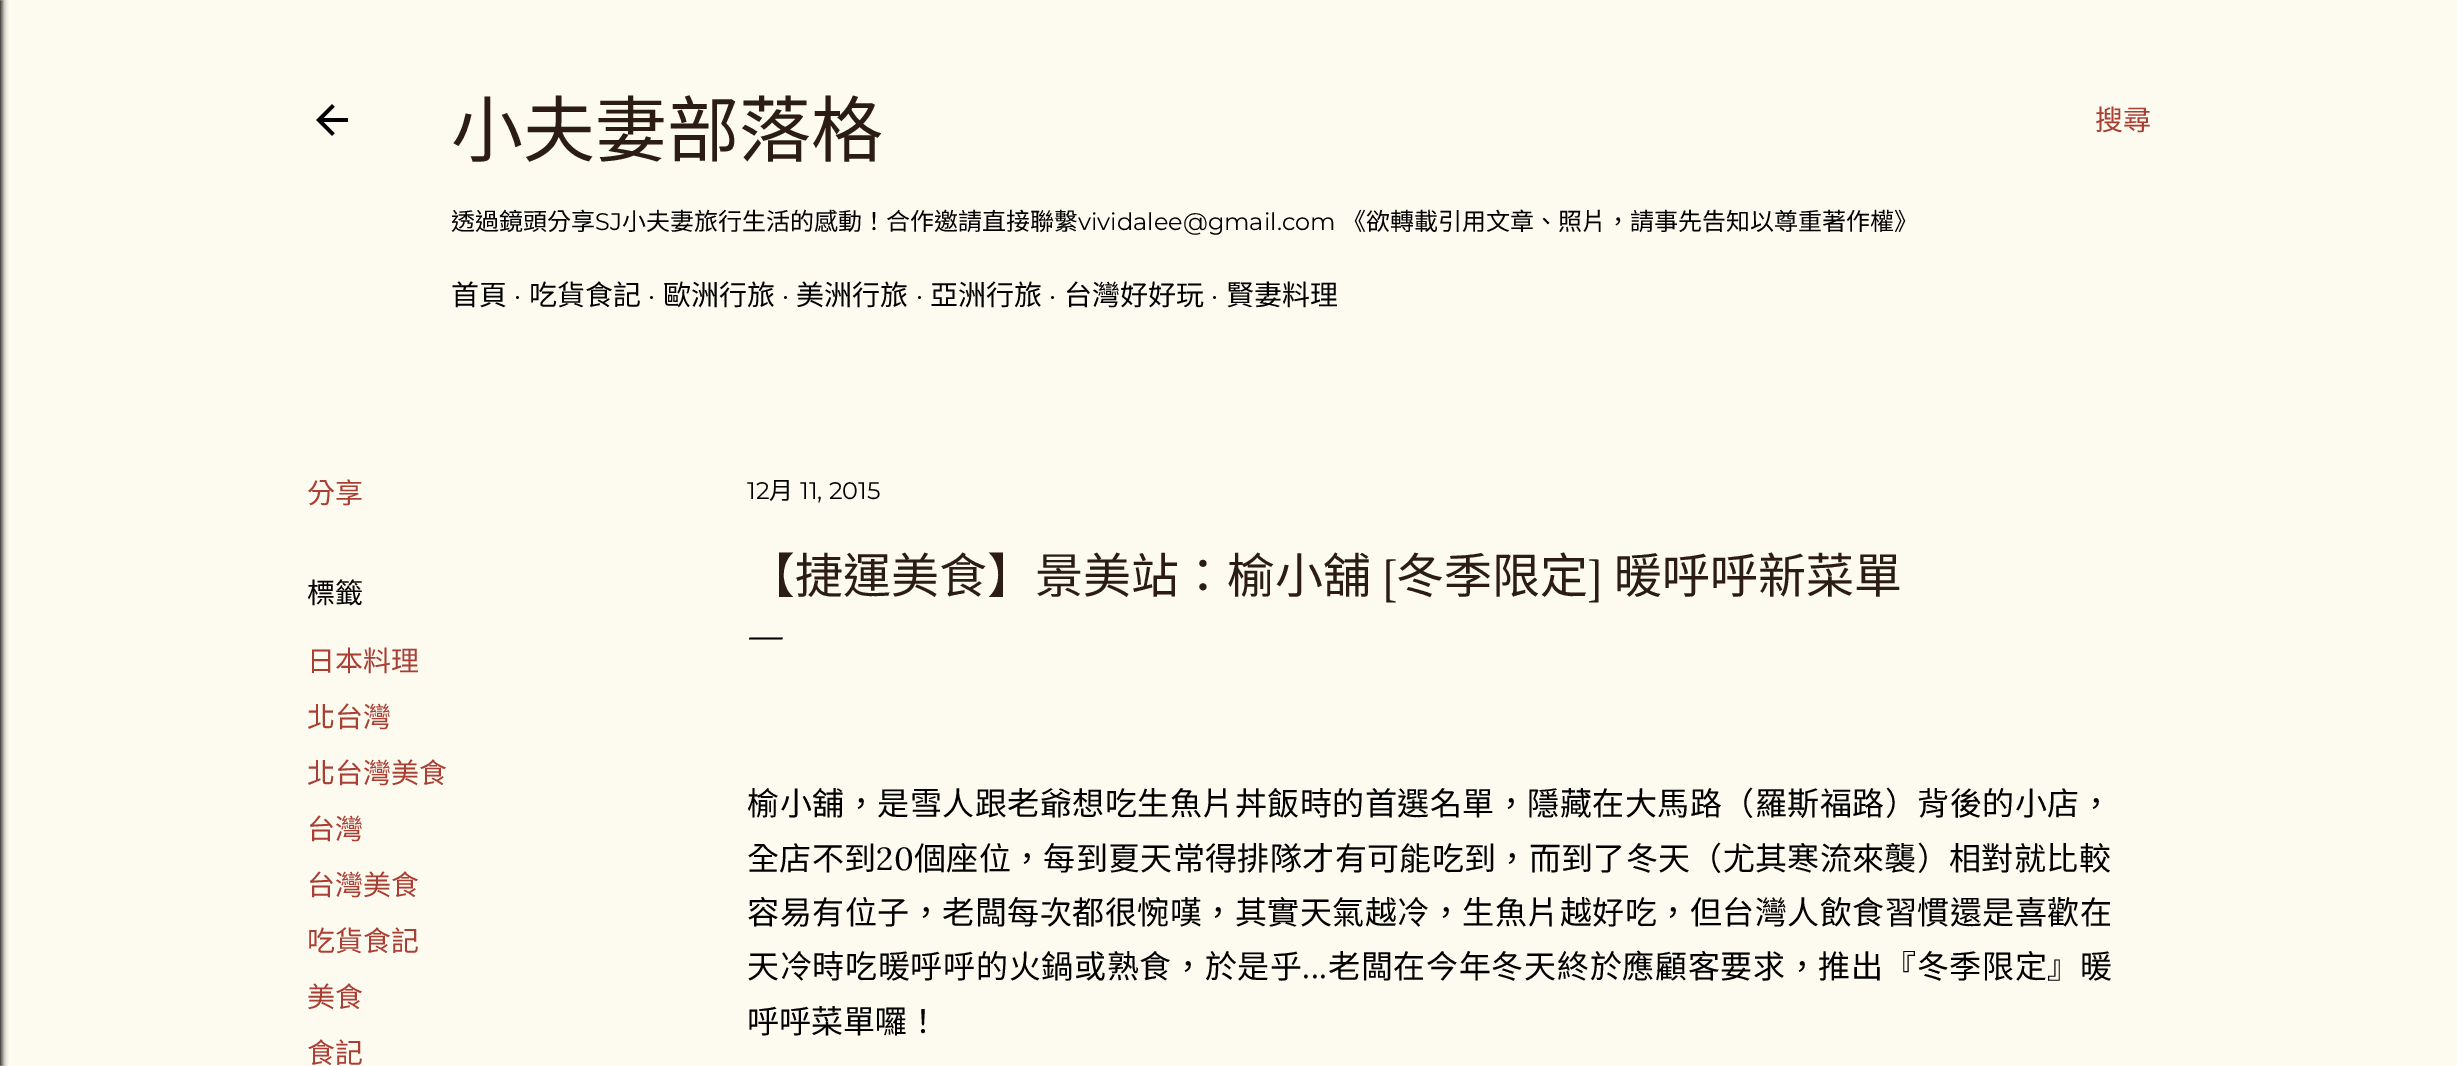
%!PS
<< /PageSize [2457 1066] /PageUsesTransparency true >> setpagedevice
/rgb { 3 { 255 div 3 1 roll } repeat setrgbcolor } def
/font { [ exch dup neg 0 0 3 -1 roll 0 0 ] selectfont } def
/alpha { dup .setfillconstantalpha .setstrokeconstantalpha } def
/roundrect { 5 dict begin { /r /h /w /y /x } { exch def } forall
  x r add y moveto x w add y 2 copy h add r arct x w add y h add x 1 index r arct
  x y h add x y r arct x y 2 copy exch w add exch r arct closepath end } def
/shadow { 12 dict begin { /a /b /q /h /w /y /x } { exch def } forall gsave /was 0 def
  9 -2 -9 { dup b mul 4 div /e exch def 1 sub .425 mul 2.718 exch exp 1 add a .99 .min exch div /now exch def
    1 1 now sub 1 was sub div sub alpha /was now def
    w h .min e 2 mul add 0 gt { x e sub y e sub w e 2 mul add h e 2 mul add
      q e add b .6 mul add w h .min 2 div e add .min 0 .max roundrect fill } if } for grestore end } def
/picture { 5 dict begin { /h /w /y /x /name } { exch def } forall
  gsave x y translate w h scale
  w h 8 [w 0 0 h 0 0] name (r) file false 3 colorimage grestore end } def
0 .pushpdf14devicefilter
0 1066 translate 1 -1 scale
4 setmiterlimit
253 250 240 rgb
0 0 2457 1066 rectfill
0 0 0 rgb
-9 0 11 1066 0 3 1 shadow
(img/1.rgb) 316 104 32 32 picture
/NotoSansCJKTC-Regular 72 font
44 29 20 rgb
451 156 moveto (小夫妻部落格) show
/NotoSansCJKTC-Regular 24 font
0 0 0 rgb
451 230 moveto (透過鏡頭分享) show
/Montserrat-Regular 24 font
595 230 moveto (SJ) show
/NotoSansCJKTC-Regular 24 font
622 230 moveto (小夫妻旅行生活的感動！合作邀請直接聯繫) show
/Montserrat-Regular 24 font
1078 230 moveto (vividalee@gmail.com) show
/NotoSansCJKTC-Regular 24 font
1342 230 moveto (《欲轉載引用文章、照片，請事先告知以尊重著作權》) show
/NotoSansCJKTC-Regular 28 font
451 305 moveto (首頁) show
/Montserrat-Regular 28 font
514 305 moveto (·) show
/NotoSansCJKTC-Regular 28 font
529 305 moveto (吃貨食記) show
/Montserrat-Regular 28 font
648 305 moveto (·) show
/NotoSansCJKTC-Regular 28 font
663 305 moveto (歐洲行旅) show
/Montserrat-Regular 28 font
782 305 moveto (·) show
/NotoSansCJKTC-Regular 28 font
796 305 moveto (美洲行旅) show
/Montserrat-Regular 28 font
916 305 moveto (·) show
/NotoSansCJKTC-Regular 28 font
930 305 moveto (亞洲行旅) show
/Montserrat-Regular 28 font
1049 305 moveto (·) show
/NotoSansCJKTC-Regular 28 font
1064 305 moveto (台灣好好玩) show
/Montserrat-Regular 28 font
1211 305 moveto (·) show
/NotoSansCJKTC-Regular 28 font
1226 305 moveto (賢妻料理) show
169 62 51 rgb
2095 130 moveto (搜尋) show
307 503 moveto (分享) show
0 0 0 rgb
307 603 moveto (標籤) show
169 62 51 rgb
[
  [(日本料理) 307 671]
  [(北台灣) 307 727]
  [(北台灣美食) 307 783]
  [(台灣) 307 839]
  [(台灣美食) 307 895]
  [(吃貨食記) 307 951]
  [(美食) 307 1007]
  [(食記) 307 1063]
] { aload pop moveto show } forall
/Montserrat-Regular 24 font
0 0 0 rgb
747 499 moveto (12) show
/NotoSansCJKTC-Regular 24 font
769 499 moveto (月) show
/Montserrat-Regular 24 font
800 499 moveto (11, 2015) show
/NotoSansCJKTC-Regular 48 font
44 29 20 rgb
747 593 moveto (【捷運美食】景美站：榆小舖) show
/EBGaramond-Regular 48 font
1381 593 moveto ([) show
/NotoSansCJKTC-Regular 48 font
1396 593 moveto (冬季限定) show
/EBGaramond-Regular 48 font
1588 593 moveto (]) show
/NotoSansCJKTC-Regular 48 font
1614 593 moveto (暖呼呼新菜單) show
/EBGaramond-Regular 40 font
0 0 0 rgb
747 647 moveto (—) show
/NotoSansCJKTC-Regular 32 font
747 815 moveto 0.5 0 (榆小舖，是雪人跟老爺想吃生魚片丼飯時的首選名單，隱藏在大馬路（羅斯福路）背後的小店，) ashow
747 870 moveto 0.35 0 (全店不到) ashow
/Lora-Regular 32 font
876 870 moveto 0.35 0 (20) ashow
/NotoSansCJKTC-Regular 32 font
914 870 moveto 0.35 0 (個座位，每到夏天常得排隊才有可能吃到，而到了冬天（尤其寒流來襲）相對就比較) ashow
747 924 moveto 0.5 0 (容易有位子，老闆每次都很惋嘆，其實天氣越冷，生魚片越好吃，但台灣人飲食習慣還是喜歡在) ashow
747 978 moveto 0.7 0 (天冷時吃暖呼呼的火鍋或熟食，於是乎) ashow
/Lora-Regular 32 font
1302 978 moveto 0.7 0 (...) ashow
/NotoSansCJKTC-Regular 32 font
1328 978 moveto 0.7 0 (老闆在今年冬天終於應顧客要求，推出『冬季限定』暖) ashow
747 1033 moveto (呼呼菜單囉！) show
.poppdf14devicefilter showpage
